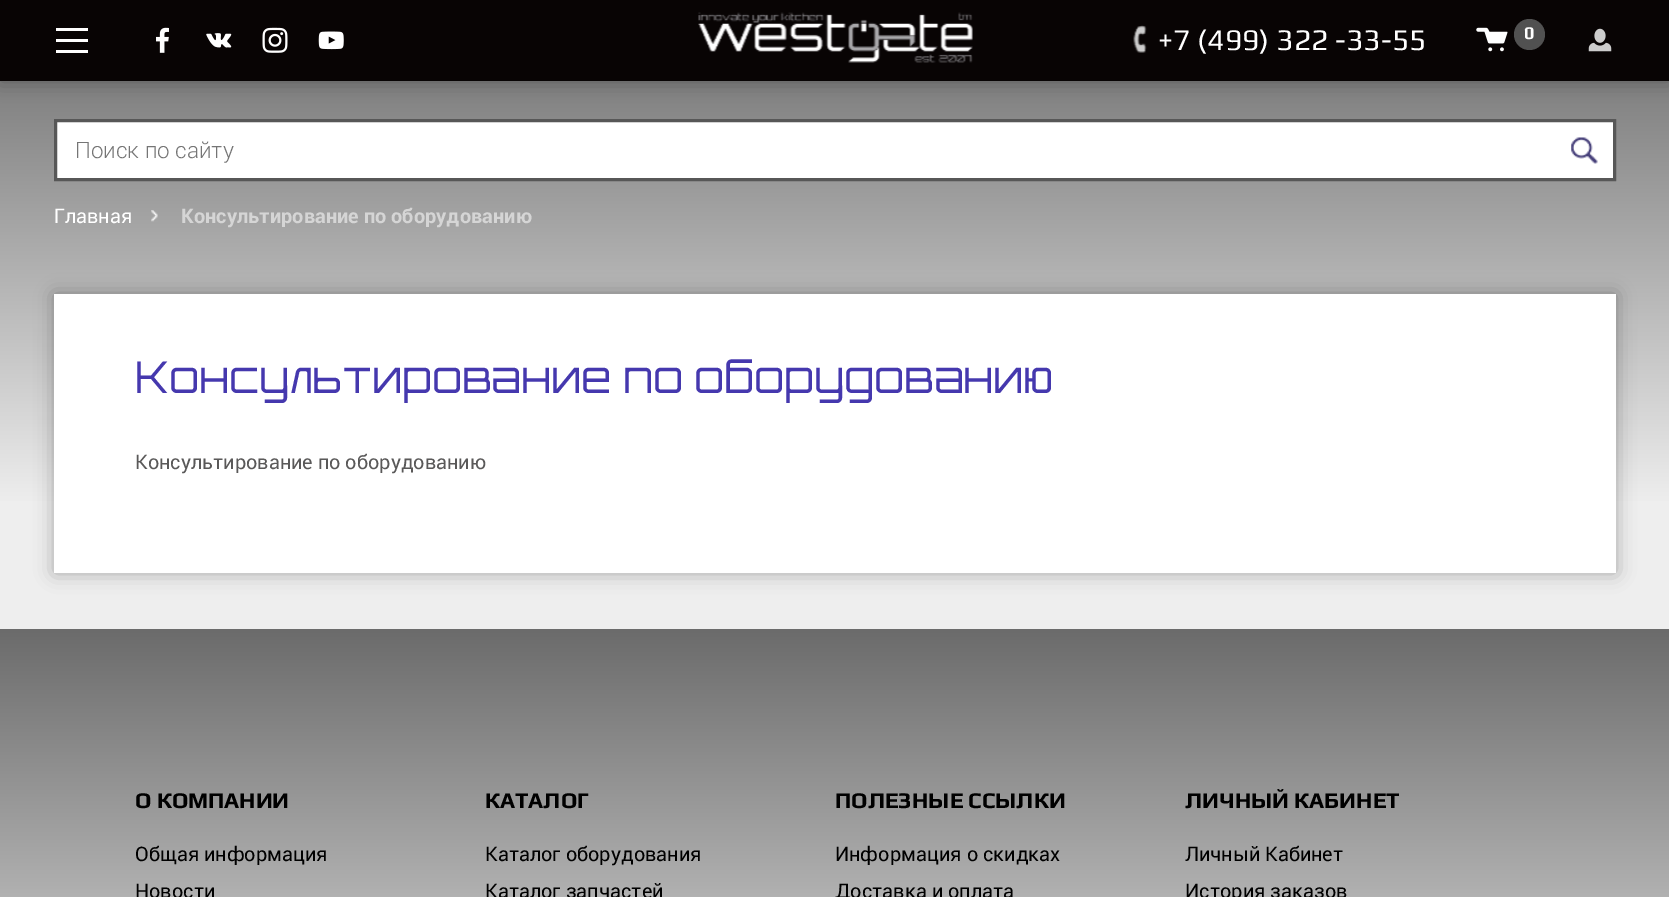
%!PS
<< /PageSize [1669 897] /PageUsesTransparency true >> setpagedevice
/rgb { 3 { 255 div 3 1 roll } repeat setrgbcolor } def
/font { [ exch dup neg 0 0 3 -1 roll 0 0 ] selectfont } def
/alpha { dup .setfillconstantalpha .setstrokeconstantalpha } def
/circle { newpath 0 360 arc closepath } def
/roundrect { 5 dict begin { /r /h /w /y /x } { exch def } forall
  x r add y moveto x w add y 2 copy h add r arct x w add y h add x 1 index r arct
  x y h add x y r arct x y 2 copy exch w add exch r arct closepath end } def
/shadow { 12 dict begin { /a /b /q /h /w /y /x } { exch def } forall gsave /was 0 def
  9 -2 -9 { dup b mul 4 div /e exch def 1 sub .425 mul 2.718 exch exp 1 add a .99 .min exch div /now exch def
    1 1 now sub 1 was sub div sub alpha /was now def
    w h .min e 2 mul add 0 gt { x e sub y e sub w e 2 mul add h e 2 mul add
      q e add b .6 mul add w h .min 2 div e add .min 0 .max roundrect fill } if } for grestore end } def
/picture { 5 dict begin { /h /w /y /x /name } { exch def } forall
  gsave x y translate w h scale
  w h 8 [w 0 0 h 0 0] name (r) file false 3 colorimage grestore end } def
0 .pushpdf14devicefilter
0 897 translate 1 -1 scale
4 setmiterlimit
255 255 255 rgb
0 0 1669 897 rectfill
gsave 0 81 moveto 1669 81 lineto 1669 629 lineto 0 629 lineto closepath clip newpath
<< /ShadingType 2 /ColorSpace /DeviceRGB /Coords [835 0 835 629] /Extend [true true] /Function << /FunctionType 3 /Domain [0 1] /Functions [<< /FunctionType 2 /Domain [0 1] /C0 [0.42 0.42 0.42] /C1 [0.933 0.933 0.933] /N 1 >> << /FunctionType 2 /Domain [0 1] /C0 [0.933 0.933 0.933] /C1 [0.933 0.933 0.933] /N 1 >>] /Bounds [0.8] /Encode [0 1 0 1] >> >> shfill grestore
0 0 0 rgb
0 0 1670 81 0 9.5 0.3 shadow
[
  [0 0 1669 81 8 4 4]
  [56 28 32 3 255 255 255]
  [56 39 32 3 255 255 255]
  [56 50 32 3 255 255 255]
] { aload pop rgb rectfill } forall
(img/1.rgb) 156 27 13 26 picture
(img/2.rgb) 206 33 26 15 picture
(img/3.rgb) 262 27 26 26 picture
(img/4.rgb) 318 31 26 19 picture
(img/5.rgb) 698 12 275 51 picture
(img/6.rgb) 1133 25 14 28 picture
(img/7.rgb) 1476 27 32 25 picture
81 81 81 rgb
1529.5 34.5 15.5 circle fill
(img/8.rgb) 1588 28 24 24 picture
255 255 255 rgb
55.5 120.5 moveto 1614.5 120.5 lineto 1614.5 179.5 lineto 55.5 179.5 lineto closepath gsave fill grestore
87 87 87 rgb
3 setlinewidth
stroke
(img/9.rgb) 1571 137 27 27 picture
(img/10.rgb) 151 210 7 12 picture
0 0 0 rgb
54 294 1562 279 0 9.5 0.3 shadow
255 255 255 rgb
54 294 1562 279 rectfill
gsave 0 629 moveto 1669 629 lineto 1669 897 lineto 0 897 lineto closepath clip newpath
<< /ShadingType 2 /ColorSpace /DeviceRGB /Coords [835 629 835 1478] /Extend [true true] /Function << /FunctionType 3 /Domain [0 1] /Functions [<< /FunctionType 2 /Domain [0 1] /C0 [0.42 0.42 0.42] /C1 [0.933 0.933 0.933] /N 1 >> << /FunctionType 2 /Domain [0 1] /C0 [0.933 0.933 0.933] /C1 [0.933 0.933 0.933] /N 1 >>] /Bounds [0.59] /Encode [0 1 0 1] >> >> shfill grestore
/Play-Regular 30 font
1158 50 moveto (+7 \(499\) 322 -33-55) show
/Play-Bold 18 font
1524 39 moveto (0) show
/Roboto-Light 22.5 font
117 117 117 rgb
75 158 moveto (Поиск по сайту) show
/Roboto-Regular 20 font
255 255 255 rgb
54 223 moveto (Главная) show
/Roboto-Bold 20 font
213 213 213 rgb
181 223 moveto (Консультирование по оборудованию) show
/Orbitron-Regular 43.75 font
69 56 174 rgb
135 393 moveto (Консультирование по оборудованию) show
/Roboto-Regular 20 font
90 89 89 rgb
135 469 moveto (Консультирование по оборудованию) show
/Play-Bold 22.5 font
0 0 0 rgb
135 808 moveto (О КОМПАНИИ) show
/Roboto-Regular 20 font
135 861 moveto (Общая информация) show
135 898 moveto (Новости) show
/Play-Bold 22.5 font
485 808 moveto (КАТАЛОГ) show
/Roboto-Regular 20 font
485 861 moveto (Каталог оборудования) show
485 898 moveto (Каталог запчастей) show
/Play-Bold 22.5 font
835 808 moveto (ПОЛЕЗНЫЕ ССЫЛКИ) show
/Roboto-Regular 20 font
835 861 moveto (Информация о скидках) show
835 898 moveto (Доставка и оплата) show
/Play-Bold 22.5 font
1185 808 moveto (ЛИЧНЫЙ КАБИНЕТ) show
/Roboto-Regular 20 font
1185 861 moveto (Личный Кабинет) show
1185 898 moveto (История заказов) show
.poppdf14devicefilter showpage
